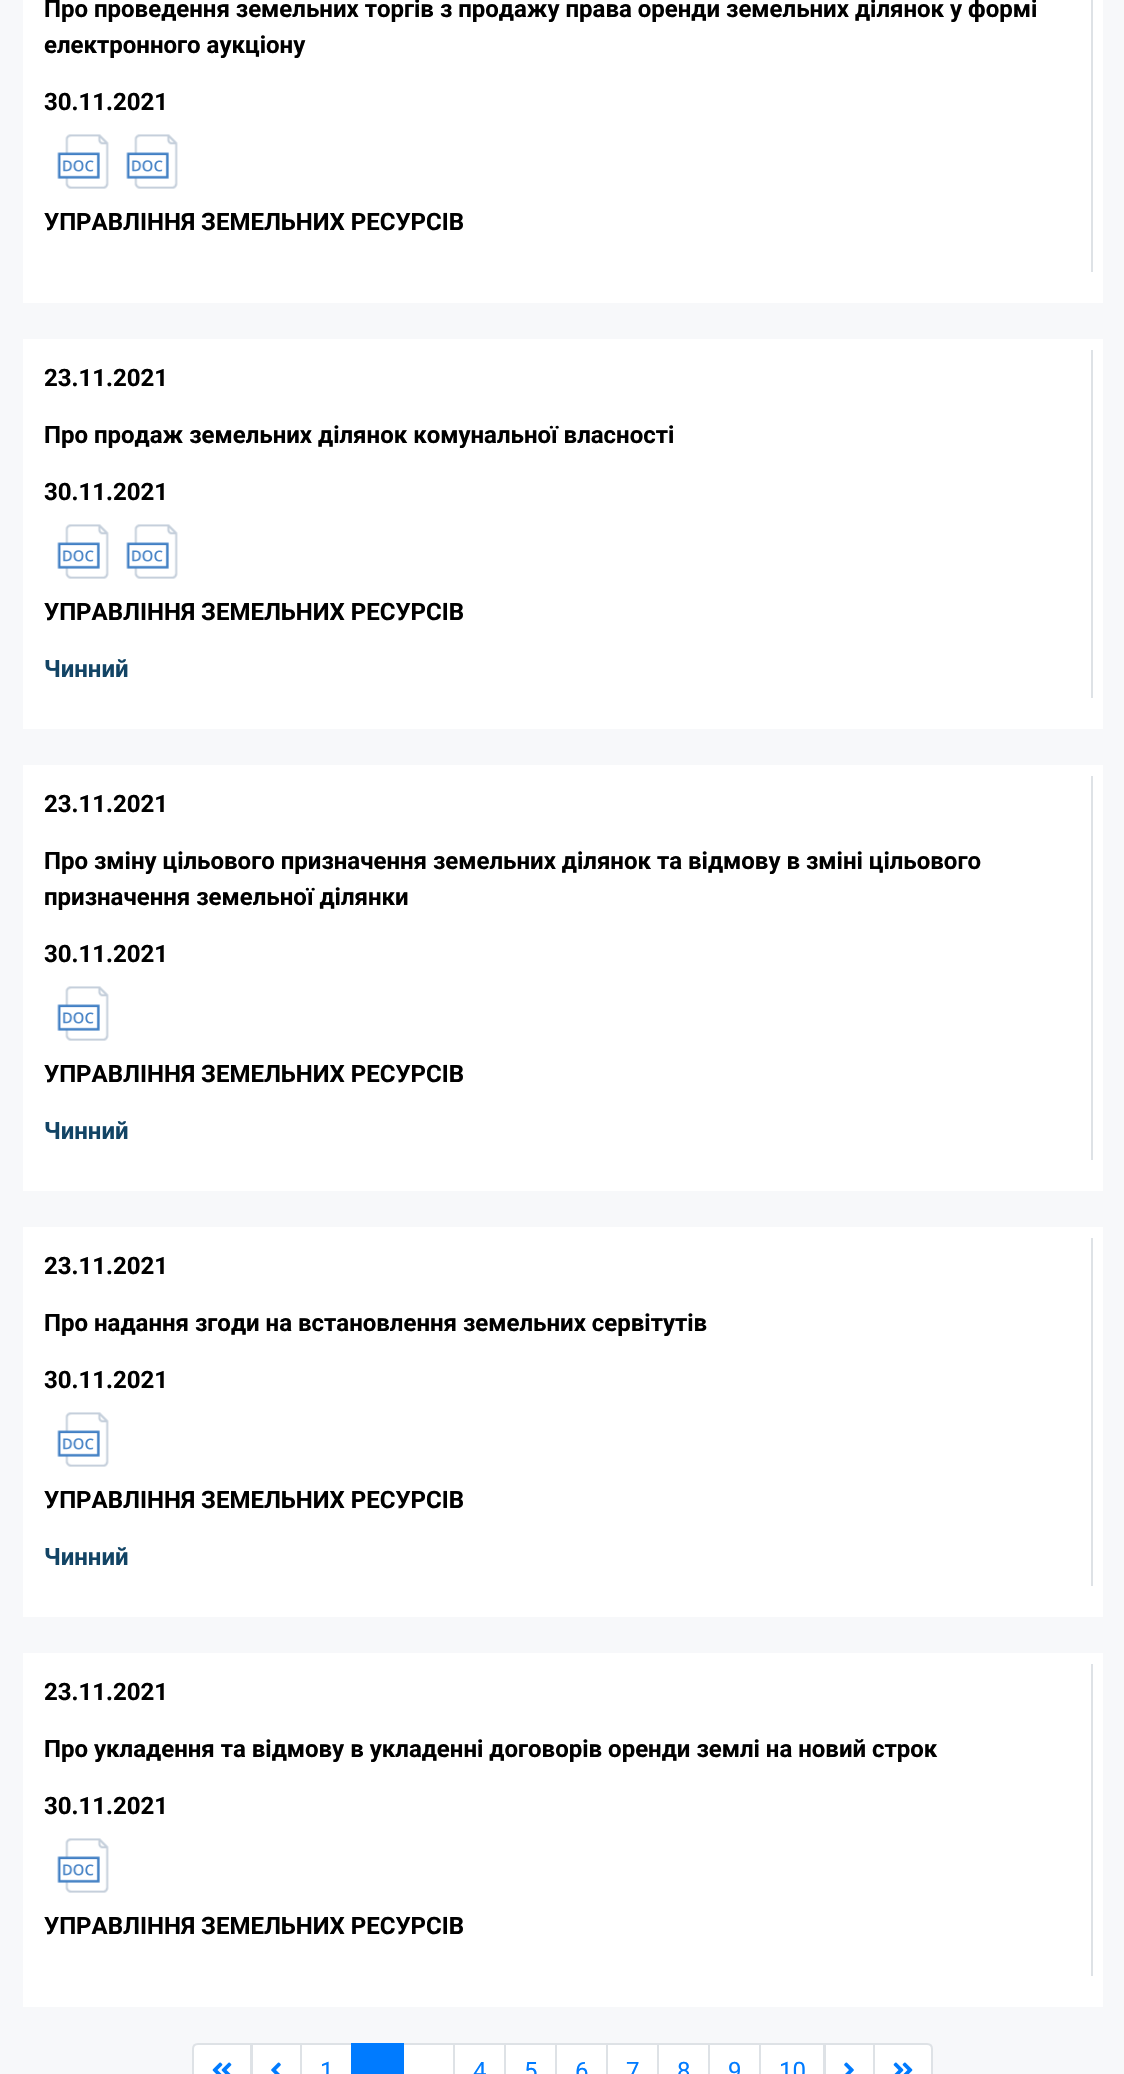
void draw(SkCanvas* c) {
SkPaint p;
p.setAntiAlias(true);
auto F=[&](const char* family, int weight, float size, bool italic = false){SkFontStyle style(weight, SkFontStyle::kNormal_Width,italic ? SkFontStyle::kItalic_Slant : SkFontStyle::kUpright_Slant);SkFont result(fontMgr->matchFamilyStyle(family, style), size);result.setSubpixel(true);return result;};
auto T=[&](const char* s, float x, float y, const SkFont& font){c->drawString(s, x, y, font, p);};
auto R=[&](float x, float y, float w, float h){c->drawRect(SkRect::MakeXYWH(x, y, w, h), p);};
auto I=[&](const char* path, float x, float y, float w, float h){auto image = SkImages::DeferredFromEncodedData(SkData::MakeFromFileName(path));c->drawImageRect(image, SkRect::MakeXYWH(x, y, w, h), SkSamplingOptions());};
auto P=[&](const char* data, bool evenOdd = false){SkPath result = *SkParsePath::FromSVGString(data);if (evenOdd) result.setFillType(SkPathFillType::kEvenOdd);return result;};
c->clear(0xfff7f8fa);
p.setColor(0xffffffff);
R(23,0,1080,303);
p.setColor(0xffdee2e6);
R(1091,0,2,272);
auto f1 = F("Roboto",700,24);
p.setColor(0xff000000);
T("Про проведення земельних торгів з продажу права оренди земельних ділянок у формі",44,17,f1);
T("електронного аукціону",44,53,f1);
T("30.11.2021",44,110,f1);
I("1.png",57,134,52,55);
I("1.png",126,134,52,55);
T("УПРАВЛІННЯ ЗЕМЕЛЬНИХ РЕСУРСІВ",44,230,f1);
p.setColor(0xffffffff);
R(23,339,1080,390);
p.setColor(0xffdee2e6);
R(1091,350,2,348);
p.setColor(0xff000000);
T("23.11.2021",44,386,f1);
T("Про продаж земельних ділянок комунальної власності",44,443,f1);
T("30.11.2021",44,500,f1);
I("1.png",57,524,52,55);
I("1.png",126,524,52,55);
T("УПРАВЛІННЯ ЗЕМЕЛЬНИХ РЕСУРСІВ",44,620,f1);
p.setColor(0xff124465);
T("Чинний",44,677,f1);
p.setColor(0xffffffff);
R(23,765,1080,426);
p.setColor(0xffdee2e6);
R(1091,776,2,384);
p.setColor(0xff000000);
T("23.11.2021",44,812,f1);
T("Про зміну цільового призначення земельних ділянок та відмову в зміні цільового",44,869,f1);
T("призначення земельної ділянки",44,905,f1);
T("30.11.2021",44,962,f1);
I("1.png",57,986,52,55);
T("УПРАВЛІННЯ ЗЕМЕЛЬНИХ РЕСУРСІВ",44,1082,f1);
p.setColor(0xff124465);
T("Чинний",44,1139,f1);
p.setColor(0xffffffff);
R(23,1227,1080,390);
p.setColor(0xffdee2e6);
R(1091,1238,2,348);
p.setColor(0xff000000);
T("23.11.2021",44,1274,f1);
T("Про надання згоди на встановлення земельних сервітутів",44,1331,f1);
T("30.11.2021",44,1388,f1);
I("1.png",57,1412,52,55);
T("УПРАВЛІННЯ ЗЕМЕЛЬНИХ РЕСУРСІВ",44,1508,f1);
p.setColor(0xff124465);
T("Чинний",44,1565,f1);
p.setColor(0xffffffff);
R(23,1653,1080,354);
p.setColor(0xffdee2e6);
R(1091,1664,2,312);
p.setColor(0xff000000);
T("23.11.2021",44,1700,f1);
T("Про укладення та відмову в укладенні договорів оренди землі на новий строк",44,1757,f1);
T("30.11.2021",44,1814,f1);
I("1.png",57,1838,52,55);
T("УПРАВЛІННЯ ЗЕМЕЛЬНИХ РЕСУРСІВ",44,1934,f1);
p.setColor(0xffffffff);
c->drawPath(P("M198 2044h53v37h-53c-3 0-5-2-5-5v-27c0-3 2-5 5-5z"),p);
p.setStroke(true);
p.setStrokeWidth(2);
p.setColor(0xffdee2e6);
c->drawPath(P("M198 2044h53v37h-53c-3 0-5-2-5-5v-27c0-3 2-5 5-5z"),p);
I("2.png",212,2062,20,12);
p.setStroke(false);
p.setColor(0xffffffff);
c->drawRect(SkRect::MakeXYWH(252,2044,49,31),p);
p.setStroke(true);
p.setColor(0xffdee2e6);
c->drawRect(SkRect::MakeXYWH(252,2044,49,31),p);
I("3.png",271,2062,10,12);
p.setStroke(false);
p.setColor(0xffffffff);
c->drawRect(SkRect::MakeXYWH(301,2044,51,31),p);
p.setStroke(true);
p.setColor(0xffdee2e6);
c->drawRect(SkRect::MakeXYWH(301,2044,51,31),p);
auto f2 = F("Roboto",400,24);
p.setStroke(false);
p.setColor(0xff007bff);
T("1",320,2079,f2);
p.setColor(0xffffffff);
c->drawRect(SkRect::MakeXYWH(403,2044,51,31),p);
p.setStroke(true);
p.setColor(0xffdee2e6);
c->drawRect(SkRect::MakeXYWH(403,2044,51,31),p);
p.setStroke(false);
p.setColor(0xff007bff);
R(351,2043,53,31);
p.setColor(0xffffffff);
c->drawRect(SkRect::MakeXYWH(454,2044,51,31),p);
p.setStroke(true);
p.setColor(0xffdee2e6);
c->drawRect(SkRect::MakeXYWH(454,2044,51,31),p);
p.setStroke(false);
p.setColor(0xff007bff);
T("4",473,2079,f2);
p.setColor(0xffffffff);
c->drawRect(SkRect::MakeXYWH(505,2044,51,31),p);
p.setStroke(true);
p.setColor(0xffdee2e6);
c->drawRect(SkRect::MakeXYWH(505,2044,51,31),p);
p.setStroke(false);
p.setColor(0xff007bff);
T("5",524,2079,f2);
p.setColor(0xffffffff);
c->drawRect(SkRect::MakeXYWH(556,2044,51,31),p);
p.setStroke(true);
p.setColor(0xffdee2e6);
c->drawRect(SkRect::MakeXYWH(556,2044,51,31),p);
p.setStroke(false);
p.setColor(0xff007bff);
T("6",575,2079,f2);
p.setColor(0xffffffff);
c->drawRect(SkRect::MakeXYWH(607,2044,51,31),p);
p.setStroke(true);
p.setColor(0xffdee2e6);
c->drawRect(SkRect::MakeXYWH(607,2044,51,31),p);
p.setStroke(false);
p.setColor(0xff007bff);
T("7",626,2079,f2);
p.setColor(0xffffffff);
c->drawRect(SkRect::MakeXYWH(658,2044,51,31),p);
p.setStroke(true);
p.setColor(0xffdee2e6);
c->drawRect(SkRect::MakeXYWH(658,2044,51,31),p);
p.setStroke(false);
p.setColor(0xff007bff);
T("8",677,2079,f2);
p.setColor(0xffffffff);
c->drawRect(SkRect::MakeXYWH(709,2044,51,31),p);
p.setStroke(true);
p.setColor(0xffdee2e6);
c->drawRect(SkRect::MakeXYWH(709,2044,51,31),p);
p.setStroke(false);
p.setColor(0xff007bff);
T("9",728,2079,f2);
p.setColor(0xffffffff);
c->drawRect(SkRect::MakeXYWH(760,2044,64,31),p);
p.setStroke(true);
p.setColor(0xffdee2e6);
c->drawRect(SkRect::MakeXYWH(760,2044,64,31),p);
p.setStroke(false);
p.setColor(0xff007bff);
T("10",779,2079,f2);
p.setColor(0xffffffff);
c->drawRect(SkRect::MakeXYWH(825,2044,49,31),p);
p.setStroke(true);
p.setColor(0xffdee2e6);
c->drawRect(SkRect::MakeXYWH(825,2044,49,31),p);
I("4.png",844,2062,10,12);
p.setStroke(false);
p.setColor(0xffffffff);
c->drawPath(P("M874 2044h53c3 0 5 2 5 5v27c0 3-2 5-5 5h-53z"),p);
p.setStroke(true);
p.setColor(0xffdee2e6);
c->drawPath(P("M874 2044h53c3 0 5 2 5 5v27c0 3-2 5-5 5h-53z"),p);
I("5.png",893,2062,20,12);
}
